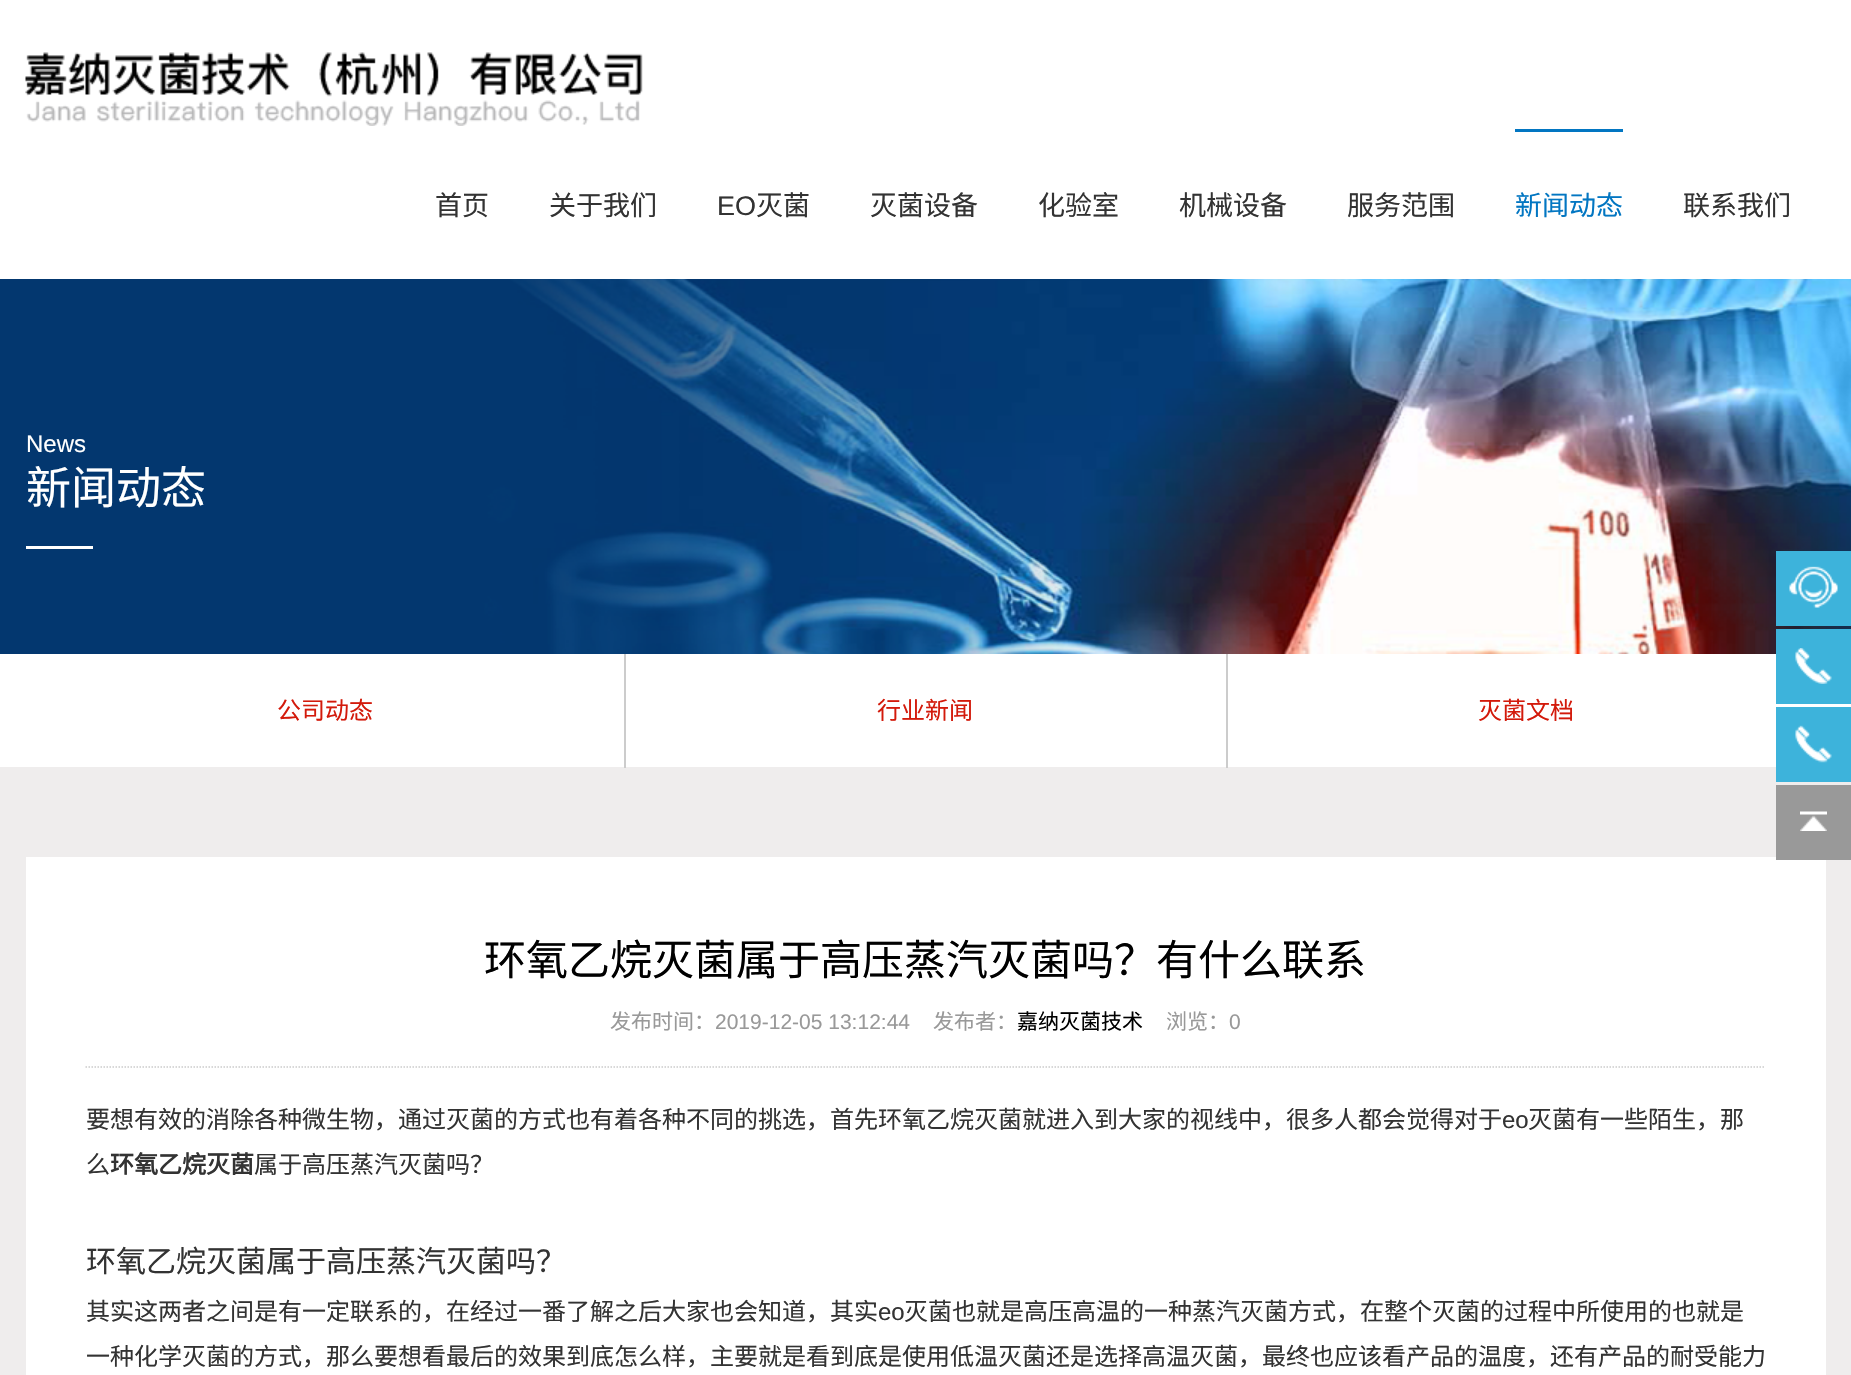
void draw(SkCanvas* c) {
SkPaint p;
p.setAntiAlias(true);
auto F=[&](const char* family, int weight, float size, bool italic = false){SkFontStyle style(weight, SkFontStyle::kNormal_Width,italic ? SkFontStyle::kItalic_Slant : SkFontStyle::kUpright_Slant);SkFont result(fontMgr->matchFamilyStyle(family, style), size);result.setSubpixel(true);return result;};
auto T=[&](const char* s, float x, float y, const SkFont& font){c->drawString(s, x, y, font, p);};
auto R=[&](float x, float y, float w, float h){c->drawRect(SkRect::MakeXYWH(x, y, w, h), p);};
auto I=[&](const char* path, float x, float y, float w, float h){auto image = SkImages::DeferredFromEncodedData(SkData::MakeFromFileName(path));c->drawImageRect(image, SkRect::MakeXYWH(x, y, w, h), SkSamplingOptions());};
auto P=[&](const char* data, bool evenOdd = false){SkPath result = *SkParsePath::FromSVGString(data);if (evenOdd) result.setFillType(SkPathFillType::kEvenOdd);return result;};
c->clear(0xffffffff);
I("1.png",25,52,618,74);
auto f1 = F("Noto Sans CJK SC",400,27);
p.setColor(0xff333333);
T("首页",435,215,f1);
T("关于我们",549,215,f1);
auto f2 = F("Liberation Sans",400,27);
T("EO",717,215,f2);
T("灭菌",756,215,f1);
T("灭菌设备",870,215,f1);
T("化验室",1038,215,f1);
T("机械设备",1179,215,f1);
T("服务范围",1347,215,f1);
p.setColor(0xff0276c2);
R(1515,129,108,3);
T("新闻动态",1515,215,f1);
p.setColor(0xff333333);
T("联系我们",1683,215,f1);
I("2.png",0,279,1851,375);
auto f3 = F("Liberation Sans",400,24);
p.setColor(0xffffffff);
T("News",26,452,f3);
auto f4 = F("Noto Sans CJK SC",400,45);
T("新闻动态",26,504,f4);
R(26,546,67,3);
p.setColor(0xffefeded);
R(0,767,1851,608);
p.setColor(0xffcccccc);
R(624,654,2,114);
auto f5 = F("Noto Sans CJK SC",400,24);
p.setColor(0xffd31a0b);
T("公司动态",277,719,f5);
p.setColor(0xffcccccc);
R(1226,654,2,114);
p.setColor(0xffd31a0b);
T("行业新闻",877,719,f5);
T("灭菌文档",1478,719,f5);
p.setColor(0xff3db3db);
R(1776,551,75,75);
I("3.png",1789,566,49,42);
R(1776,629,75,75);
I("4.png",1795,648,37,36);
R(1776,707,75,75);
I("5.png",1795,725,37,38);
p.setColor(0xffffffff);
R(26,857,1800,518);
p.setColor(0xff999999);
R(1776,785,75,75);
I("6.png",1800,811,27,20);
p.setStroke(true);
p.setStrokeWidth(1.5);
p.setColor(0xffcccccc);
p.setPathEffect(SkDashPathEffect::Make({{1.5f,1.5f}}, 0));
c->drawPath(P("M85.5 1067h1680"),p);
p.setPathEffect(nullptr);
auto f6 = F("Noto Sans CJK SC",400,42);
p.setStroke(false);
p.setColor(0xff000000);
T("环氧乙烷灭菌属于高压蒸汽灭菌吗？有什么联系",484,975,f6);
auto f7 = F("Noto Sans CJK SC",400,21);
p.setColor(0xff999999);
T("发布时间：",610,1029,f7);
auto f8 = F("Liberation Sans",400,21);
T("2019-12-05 13:12:44",715,1029,f8);
T("发布者：",933,1029,f7);
p.setColor(0xff000000);
T("嘉纳灭菌技术",1017,1029,f7);
p.setColor(0xff999999);
T("浏览：",1166,1029,f7);
T("0",1229,1029,f8);
p.setColor(0xff333333);
T("要想有效的消除各种微生物，通过灭菌的方式也有着各种不同的挑选，首先环氧乙烷灭菌就进入到大家的视线中，很多人都会觉得对于",86,1128,f5);
T("eo",1502,1128,f3);
T("灭菌有一些陌生，那",1528,1128,f5);
T("么",86,1173,f5);
auto f9 = F("Noto Sans CJK SC",700,24);
T("环氧乙烷灭菌",110,1173,f9);
T("属于高压蒸汽灭菌吗？",254,1173,f5);
auto f10 = F("Noto Sans CJK SC",400,30);
T("环氧乙烷灭菌属于高压蒸汽灭菌吗？",86,1272,f10);
T("其实这两者之间是有一定联系的，在经过一番了解之后大家也会知道，其实",86,1320,f5);
T("eo",878,1320,f3);
T("灭菌也就是高压高温的一种蒸汽灭菌方式，在整个灭菌的过程中所使用的也就是",904,1320,f5);
T("一种化学灭菌的方式，那么要想看最后的效果到底怎么样，主要就是看到底是使用低温灭菌还是选择高温灭菌，最终也应该看产品的温度，还有产品的耐受能力",86,1365,f5);
}
